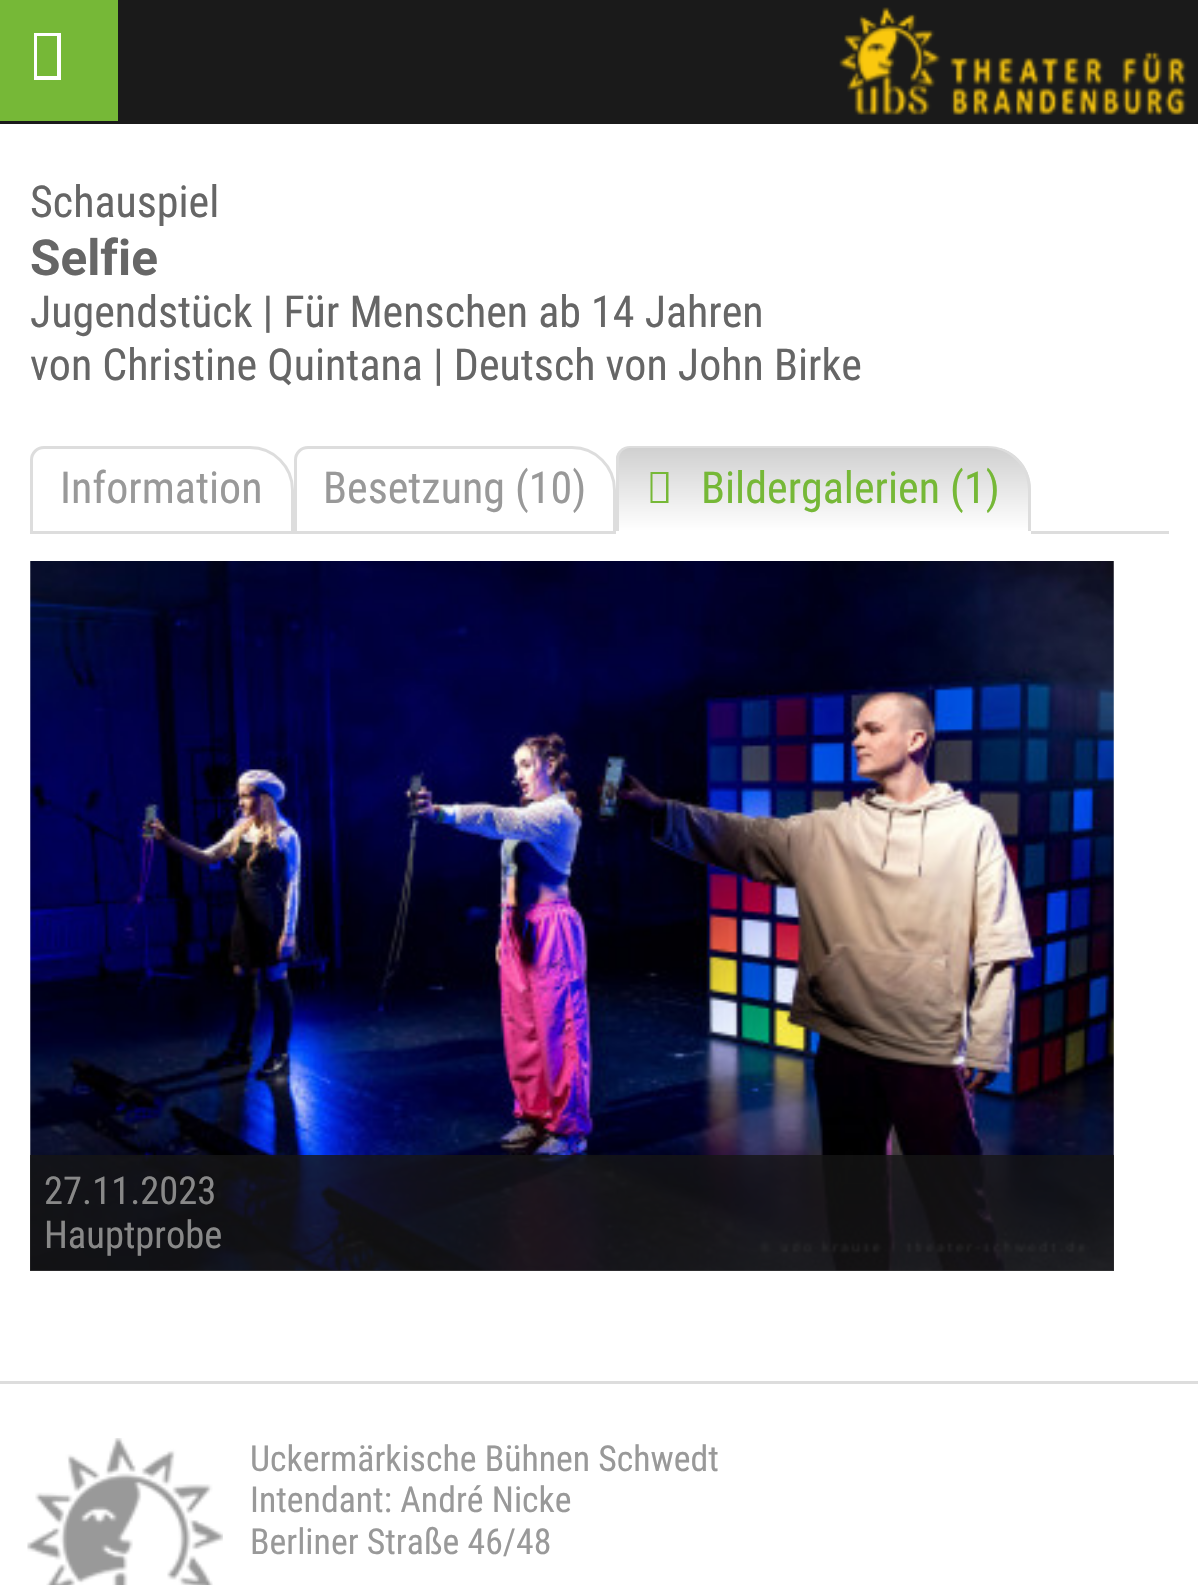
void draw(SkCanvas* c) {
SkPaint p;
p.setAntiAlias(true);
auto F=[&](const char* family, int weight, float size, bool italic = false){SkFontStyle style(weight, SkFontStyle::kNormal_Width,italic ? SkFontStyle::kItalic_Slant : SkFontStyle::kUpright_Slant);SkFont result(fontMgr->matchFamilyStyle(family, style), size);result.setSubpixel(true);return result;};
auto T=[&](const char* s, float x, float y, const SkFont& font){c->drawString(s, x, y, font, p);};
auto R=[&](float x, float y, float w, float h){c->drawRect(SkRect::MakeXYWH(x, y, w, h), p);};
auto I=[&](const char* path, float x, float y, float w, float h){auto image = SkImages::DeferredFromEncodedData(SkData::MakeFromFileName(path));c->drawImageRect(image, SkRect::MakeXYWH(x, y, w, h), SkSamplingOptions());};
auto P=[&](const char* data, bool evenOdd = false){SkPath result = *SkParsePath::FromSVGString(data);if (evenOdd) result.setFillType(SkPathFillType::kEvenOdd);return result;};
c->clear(0xffffffff);
p.setColor(0xff1a1a1a);
R(0,0,1198,124);
p.setColor(0xff76b837);
R(0,0,118,121);
p.setColor(0xffffffff);
c->drawPath(P("M34 80v-47h27v47zm3-4h20v-40h-20z"),p);
I("1.png",839,7,348,108);
auto f1 = F("Roboto Condensed",400,44);
p.setColor(0xff666666);
T("Schauspiel",30,217,f1);
auto f2 = F("Roboto",700,49.5);
T("Selfie",30,275,f2);
T("Jugendstück | Für Menschen ab 14 Jahren",30,327,f1);
T("von Christine Quintana | Deutsch von John Birke",30,380,f1);
p.setStroke(true);
p.setStrokeWidth(3);
p.setColor(0xffdddddd);
c->drawPath(P("M44 447.5h206c23.5 0 42.5 19 42.5 42.5v42.5h-261v-72.5c0-7 5.5-12.5 12.5-12.5z"),p);
p.setStroke(false);
p.setColor(0xff999999);
T("Information",60,503,f1);
p.setStroke(true);
p.setColor(0xffdddddd);
c->drawPath(P("M308 447.5h264c23.5 0 42.5 19 42.5 42.5v42.5h-319v-72.5c0-7 5.5-12.5 12.5-12.5z"),p);
p.setStroke(false);
p.setColor(0xff999999);
T("Besetzung (10)",323,503,f1);
c->save();
c->clipPath(P("M630 446h357c24.5 0 44 19.5 44 44v41h-415v-71c0-7.5 6.5-14 14-14z"),true);
{
const SkColor colors[] = {0xffd0d0d0,0xffffffff};
const float stops[] = {0,1};
const SkPoint ends[] = {{824,448}, {824,531}};
p.setShader(SkGradientShader::MakeLinear(ends, colors, stops, 2, SkTileMode::kClamp));
p.setAlpha(255);
}
R(616,448,415,83);
c->restore();
p.setShader(nullptr);
p.setColor(0xffdddddd);
c->drawPath(P("M630 446h357c25 0 44 19 44 44v41h-415v-72c0-7 6-13 14-13zm0 2h357c23 0 41 19 41 42v41h-409v-72c0-6 5-11 11-11z",true),p);
p.setColor(0xff76b837);
c->drawPath(P("M650.5 503v-31h18v31zm2-2h13.5v-27h-13.5z"),p);
T("Bildergalerien (1)",701,503,f1);
p.setColor(0xffdddddd);
R(1031,531,138,3);
I("2.png",30,561,1084,710);
p.setColor(0xcc141414);
R(30,1155,1084,116);
auto f3 = F("Roboto Condensed",400,38.5);
p.setColor(0xff888888);
T("27.11.2023",44,1204,f3);
T("Hauptprobe",44,1248,f3);
p.setColor(0xffdddddd);
R(0,1381,1198,3);
I("3.png",27,1438,196,147);
auto f4 = F("Roboto Condensed",400,35.75);
p.setColor(0xff999999);
T("Uckermärkische Bühnen Schwedt",250,1471,f4);
T("Intendant: André Nicke",250,1512,f4);
T("Berliner Straße 46/48",250,1554,f4);
}
